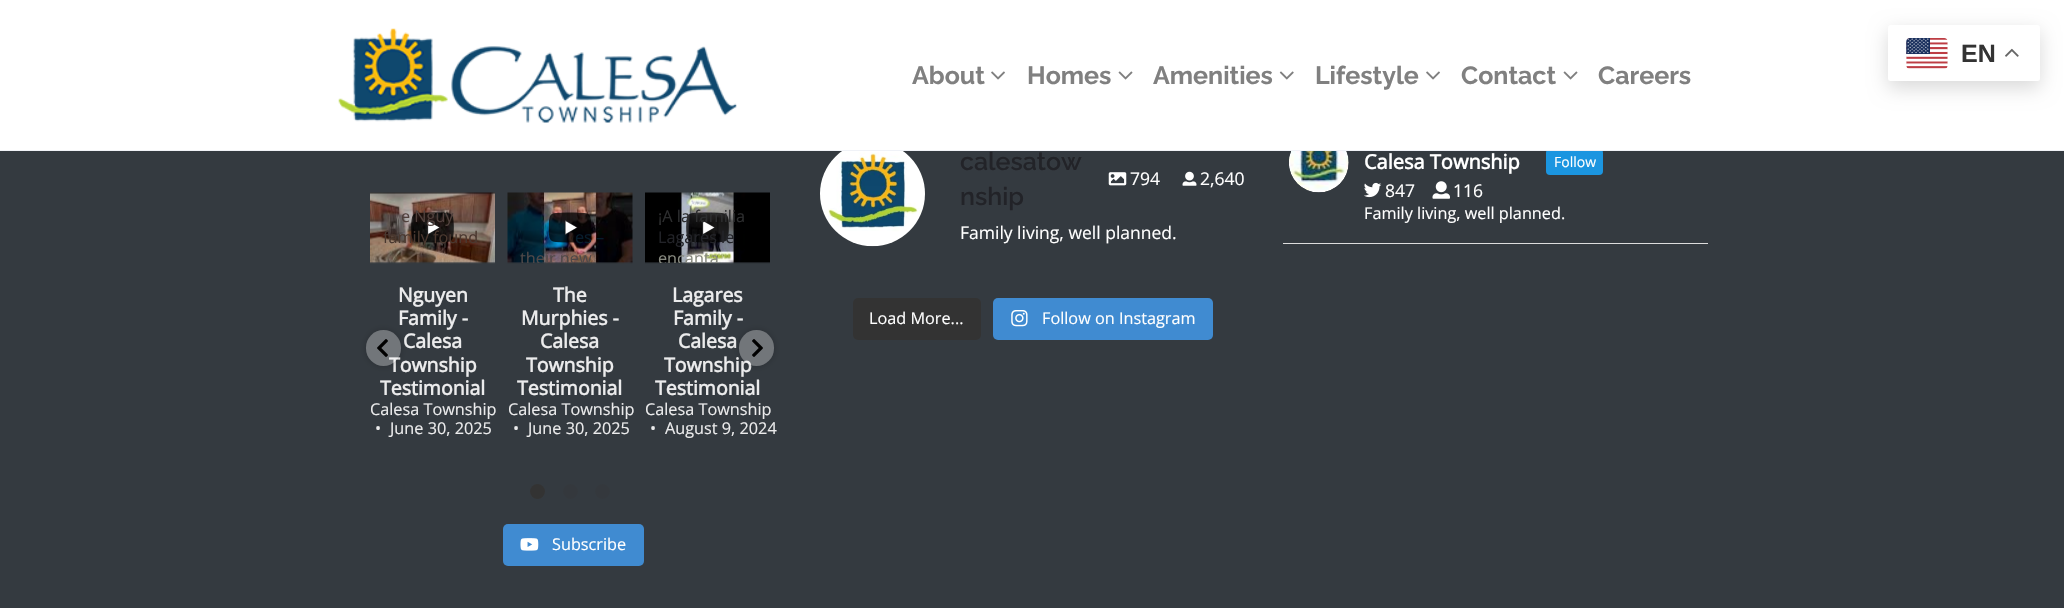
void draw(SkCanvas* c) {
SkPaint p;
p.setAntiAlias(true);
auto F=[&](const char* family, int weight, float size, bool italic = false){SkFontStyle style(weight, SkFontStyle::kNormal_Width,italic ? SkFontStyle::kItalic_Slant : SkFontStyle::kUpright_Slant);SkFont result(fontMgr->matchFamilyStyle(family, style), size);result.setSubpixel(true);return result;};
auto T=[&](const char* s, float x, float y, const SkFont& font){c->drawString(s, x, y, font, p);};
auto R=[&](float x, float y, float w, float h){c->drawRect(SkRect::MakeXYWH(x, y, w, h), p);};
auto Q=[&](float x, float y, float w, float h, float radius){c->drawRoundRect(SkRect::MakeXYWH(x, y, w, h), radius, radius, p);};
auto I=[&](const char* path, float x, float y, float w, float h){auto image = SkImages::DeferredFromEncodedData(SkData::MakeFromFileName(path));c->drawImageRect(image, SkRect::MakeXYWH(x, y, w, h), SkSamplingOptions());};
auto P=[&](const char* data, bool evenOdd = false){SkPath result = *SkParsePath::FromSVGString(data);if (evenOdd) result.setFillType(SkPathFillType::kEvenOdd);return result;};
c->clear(0xff343a40);
p.setColor(0xff1b95e0);
Q(1546,149,57,26,4);
p.setColor(0xffffffff);
R(0,0,2064,150);
p.setColor(0x26000000);
p.setMaskFilter(SkMaskFilter::MakeBlur(kNormal_SkBlurStyle, 9.5));
c->drawRoundRect(SkRect::MakeXYWH(1888,31,152,57),2.5,2.5,p);
p.setMaskFilter(nullptr);
p.setColor(0xffffffff);
Q(1888,25,152,56,2.5);
I("1.png",1906,38,42,31);
auto f1 = F("Liberation Sans",700,25);
p.setColor(0xff333333);
T("EN",1961,62,f1);
I("2.png",2005,48,14,9);
p.setColor(0xfff0f2f7);
R(0,150,2064,1);
I("3.png",338,28,399,95);
auto f2 = F("Raleway",700,25);
p.setColor(0xff808080);
T("About",912,84,f2);
I("4.png",991,71,14,9);
T("Homes",1027,84,f2);
I("5.png",1118,71,15,9);
T("Amenities",1153,84,f2);
I("6.png",1279,71,15,9);
T("Lifestyle",1315,84,f2);
I("4.png",1426,71,14,9);
T("Contact",1461,84,f2);
I("5.png",1563,71,15,9);
T("Careers",1598,84,f2);
I("7.png",820,151,105,96);
auto f3 = F("Raleway",600,25);
p.setColor(0xff222328);
T("calesatow",960,170,f3);
T("nship",960,205,f3);
I("8.png",1108,172,19,14);
auto f4 = F("Open Sans",400,17.5);
p.setColor(0xffffffff);
T("794",1130,185,f4);
I("9.png",1182,171,15,15);
T("2,640",1200,185,f4);
T("Family living, well planned.",960,239,f4);
p.setColor(0xff333333);
Q(853,298,128,42,5);
auto f5 = F("Open Sans",400,16.25);
p.setColor(0xffffffff);
T("Load More...",869,324,f5);
p.setColor(0xff408bd1);
Q(993,298,220,42,5);
I("10.png",1011,310,17,17);
p.setColor(0xffffffff);
T("Follow on Instagram",1042,324,f5);
p.setColor(0xffdddddd);
R(1283,243,425,1);
I("11.png",1289,151,60,42);
auto f6 = F("Open Sans",700,20);
p.setColor(0xffffffff);
T("Calesa Township",1364,169,f6);
auto f7 = F("Open Sans",400,14);
T("Follow",1554,167,f7);
I("12.png",1364,182,18,16);
T("847",1385,197,f4);
I("13.png",1432,181,18,18);
T("116",1453,197,f4);
T("Family living, well planned.",1364,219,f5);
I("14.png",370,192,125,72);
c->drawPath(P("M427.5 235v-15l12.5 7.5z"),p);
I("15.png",411,212,43,31);
p.setColor(0xff50403c);
T("e Nguy",401,222,f5);
p.setColor(0xff4a382f);
T("family found",383,243,f5);
auto f8 = F("Open Sans",700,19.5);
p.setColor(0xffebebec);
T("Nguyen",398,302,f8);
T("Family -",398,325,f8);
T("Calesa",403,348,f8);
T("Township",389,372,f8);
T("Testimonial",380,395,f8);
T("Calesa Township",370,415,f5);
T("•",375,434,f5);
T("June 30, 2025",390,434,f5);
I("16.png",507,192,126,72);
p.setColor(0xffffffff);
c->drawPath(P("M565 235v-15l12.5 7.5z"),p);
I("17.png",548,212,43,31);
p.setColor(0xff071d2c);
T("es –",575,243,f5);
c->save();
c->clipRect(SkRect::MakeXYWH(508,193,125,70));
p.setColor(0xff504848);
T("their new",520,264,f5);
c->restore();
p.setColor(0xffebebec);
T("The",553,302,f8);
T("Murphies -",521,325,f8);
T("Calesa",540,348,f8);
T("Township",526,372,f8);
T("Testimonial",517,395,f8);
T("Calesa Township",508,415,f5);
T("•",513,434,f5);
T("June 30, 2025",528,434,f5);
I("18.png",645,192,125,72);
p.setColor(0xffffffff);
c->drawPath(P("M702.5 235v-15l12.5 7.5z"),p);
I("19.png",686,212,43,31);
p.setColor(0xff2c2d2e);
T("¡A la familia",658,222,f5);
p.setColor(0xff222328);
T("Lagares le",658,243,f5);
c->save();
c->clipRect(SkRect::MakeXYWH(645,193,125,70));
p.setColor(0xff87897f);
T("encanta",658,264,f5);
c->restore();
p.setColor(0xffebebec);
T("Lagares",672,302,f8);
T("Family -",673,325,f8);
T("Calesa",678,348,f8);
T("Township",664,372,f8);
T("Testimonial",655,395,f8);
T("Calesa Township",645,415,f5);
T("•",650,434,f5);
T("August 9, 2024",665,434,f5);
c->save();
c->clipPath(P("M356 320h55v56h-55zm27.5 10c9.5 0 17.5 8 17.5 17.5v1c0 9.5-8 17.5-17.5 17.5c-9.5 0-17.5-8-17.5-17.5v-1c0-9.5 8-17.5 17.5-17.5z",true),true);
p.setColor(0x33000000);
p.setMaskFilter(SkMaskFilter::MakeBlur(kNormal_SkBlurStyle, 3));
c->drawRoundRect(SkRect::MakeXYWH(366,330,35,36),17.5,17.5,p);
p.setMaskFilter(nullptr);
c->restore();
p.setColor(0x4dffffff);
Q(366,330,35,36,17.5);
I("20.png",377,339,11,18);
c->save();
c->clipPath(P("M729 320h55v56h-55zm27.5 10c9.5 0 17.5 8 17.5 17.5v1c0 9.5-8 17.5-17.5 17.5c-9.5 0-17.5-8-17.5-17.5v-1c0-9.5 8-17.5 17.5-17.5z",true),true);
p.setColor(0x33000000);
p.setMaskFilter(SkMaskFilter::MakeBlur(kNormal_SkBlurStyle, 3));
c->drawRoundRect(SkRect::MakeXYWH(739,330,35,36),17.5,17.5,p);
p.setMaskFilter(nullptr);
c->restore();
p.setColor(0x4dffffff);
Q(739,330,35,36,17.5);
I("21.png",752,339,11,18);
p.setColor(0xff333333);
c->drawCircle(537.5,491.5,7.5,p);
p.setColor(0xff34383d);
c->drawCircle(570.5,491.5,7.5,p);
c->drawCircle(602.5,491.5,7.5,p);
p.setColor(0xff408bd1);
Q(503,524,141,42,5);
I("22.png",520,538,19,13);
p.setColor(0xffffffff);
T("Subscribe",552,550,f5);
}
